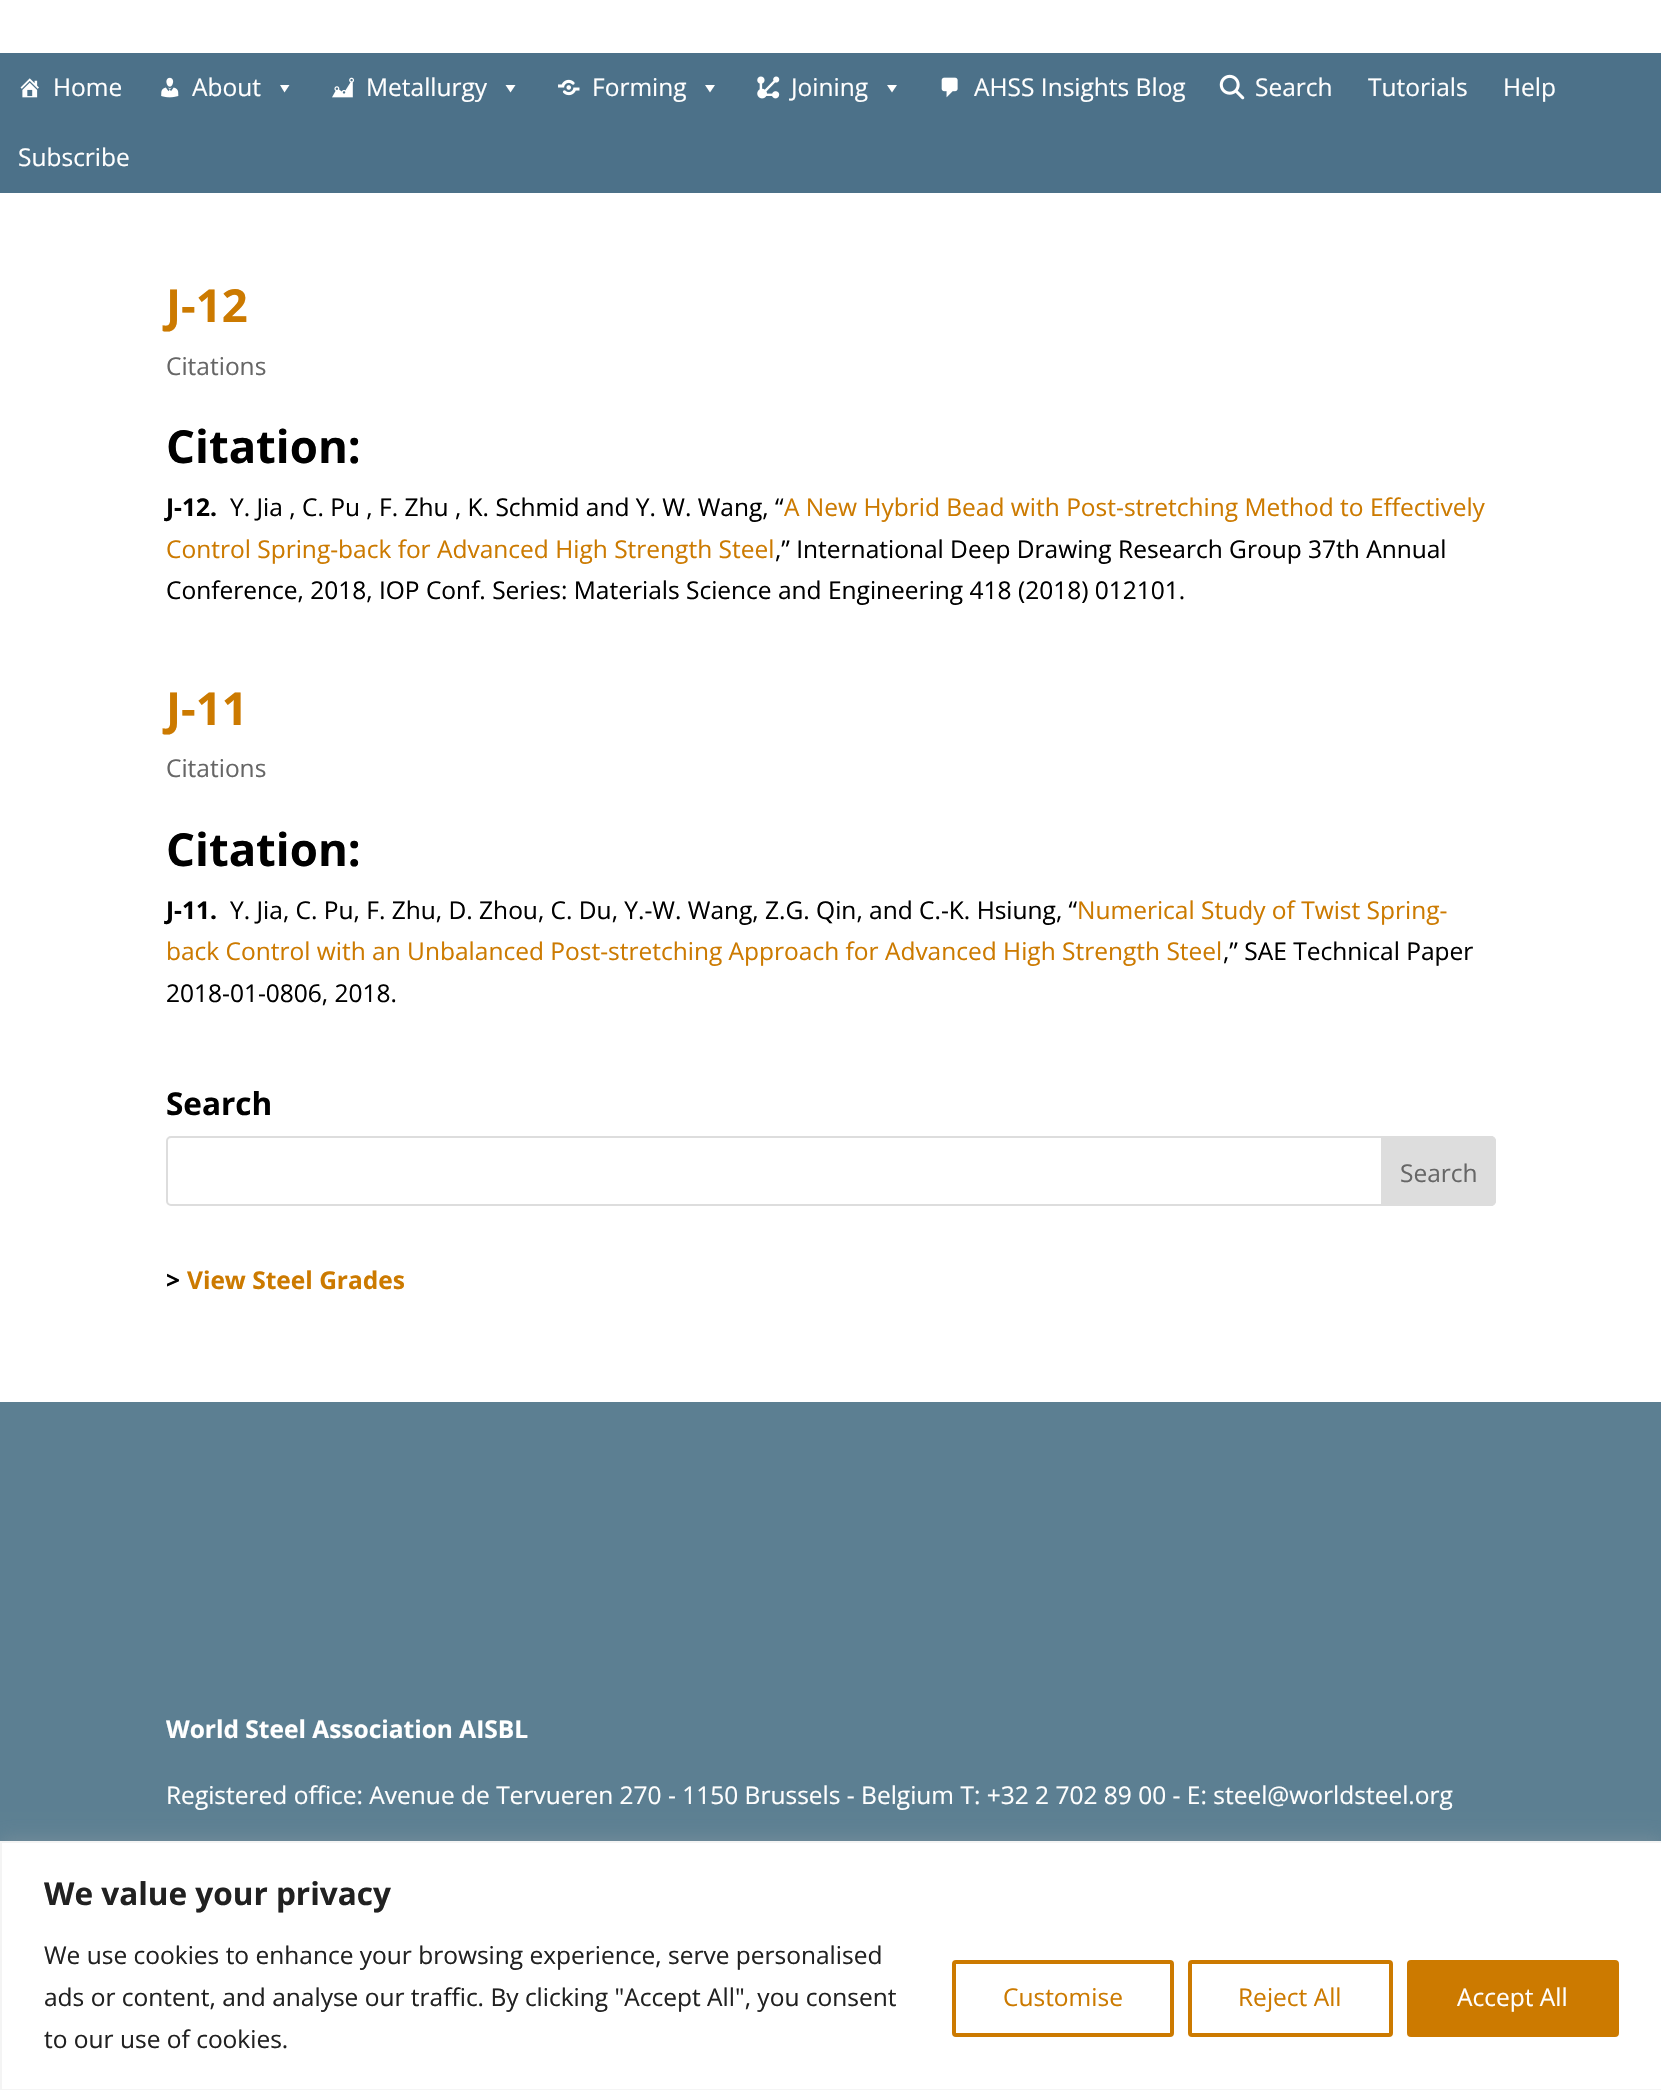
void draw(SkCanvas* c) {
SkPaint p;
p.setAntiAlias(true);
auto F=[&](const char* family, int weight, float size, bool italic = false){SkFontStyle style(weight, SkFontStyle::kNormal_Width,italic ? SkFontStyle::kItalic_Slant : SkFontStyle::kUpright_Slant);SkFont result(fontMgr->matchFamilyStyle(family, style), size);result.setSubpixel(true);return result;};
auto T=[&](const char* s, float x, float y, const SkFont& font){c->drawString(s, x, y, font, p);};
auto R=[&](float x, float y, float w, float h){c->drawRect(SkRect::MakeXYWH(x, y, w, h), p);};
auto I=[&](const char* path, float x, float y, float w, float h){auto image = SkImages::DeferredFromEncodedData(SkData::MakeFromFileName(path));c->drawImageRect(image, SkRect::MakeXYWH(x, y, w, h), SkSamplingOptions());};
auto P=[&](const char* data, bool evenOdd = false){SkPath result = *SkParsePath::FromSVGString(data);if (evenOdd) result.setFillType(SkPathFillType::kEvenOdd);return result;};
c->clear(0xffffffff);
p.setColor(0xff4c7189);
R(0,53,1661,140);
I("1.png",20,78,19,20);
auto f1 = F("Open Sans",400,24.5);
p.setColor(0xffffffff);
T("Home",53,96,f1);
I("2.png",161,77,18,21);
T("About",192,96,f1);
c->drawPath(P("M289.5 85l-5 7.5l-4.5-7.5z"),p);
I("3.png",332,77,22,21);
T("Metallurgy",366,96,f1);
c->drawPath(P("M515.5 85l-5 7.5l-5-7.5z"),p);
I("4.png",558,79,22,17);
T("Forming",592,96,f1);
c->drawPath(P("M715 85l-5 7.5l-5-7.5z"),p);
I("5.png",757,76,23,23);
T("Joining",791,96,f1);
c->drawPath(P("M897 85l-5 7.5l-5-7.5z"),p);
I("6.png",941,77,17,21);
T("AHSS Insights Blog",974,96,f1);
I("7.png",1219,74,26,26);
T("Search",1255,96,f1);
T("Tutorials",1368,96,f1);
T("Help",1503,96,f1);
T("Subscribe",18,166,f1);
auto f2 = F("Open Sans",700,45.5);
p.setColor(0xffcc7a00);
T("J-12",166,322,f2);
p.setColor(0xff666666);
T("Citations",166,375,f1);
p.setColor(0xff000000);
T("Citation:",166,463,f2);
auto f3 = F("Open Sans",700,24.5);
T("J-12.",166,516,f3);
T("Y. Jia , C. Pu , F. Zhu , K. Schmid and Y. W. Wang, “",230,516,f1);
p.setColor(0xffcc7a00);
T("A New Hybrid Bead with Post-stretching Method to Effectively",784,516,f1);
T("Control Spring-back for Advanced High Strength Steel",166,558,f1);
p.setColor(0xff000000);
T(",” International Deep Drawing Research Group 37th Annual",775,558,f1);
T("Conference, 2018, IOP Conf. Series: Materials Science and Engineering 418 (2018) 012101.",166,599,f1);
p.setColor(0xffcc7a00);
T("J-11",166,725,f2);
p.setColor(0xff666666);
T("Citations",166,777,f1);
p.setColor(0xff000000);
T("Citation:",166,866,f2);
T("J-11.",166,919,f3);
T("Y. Jia, C. Pu, F. Zhu, D. Zhou, C. Du, Y.-W. Wang, Z.G. Qin, and C.-K. Hsiung, “",230,919,f1);
p.setColor(0xffcc7a00);
T("Numerical Study of Twist Spring-",1077,919,f1);
T("back Control with an Unbalanced Post-stretching Approach for Advanced High Strength Steel",166,960,f1);
p.setColor(0xff000000);
T(",” SAE Technical Paper",1223,960,f1);
T("2018-01-0806, 2018.",166,1002,f1);
auto f4 = F("Open Sans",700,31.5);
T("Search",166,1115,f4);
p.setStroke(true);
p.setStrokeWidth(2);
p.setColor(0xffdddddd);
c->drawRoundRect(SkRect::MakeXYWH(167,1137,1328,68),4,4,p);
p.setStroke(false);
c->drawPath(P("M1382 1137h109c2 0 4 2 4 4v60c0 2-2 4-4 4h-109z"),p);
p.setStroke(true);
c->drawPath(P("M1382 1137h109c2 0 4 2 4 4v60c0 2-2 4-4 4h-109z"),p);
p.setStroke(false);
p.setColor(0xff666666);
T("Search",1400,1182,f1);
p.setColor(0xff000000);
T(">",166,1289,f3);
p.setColor(0xffcc7a00);
T("View Steel Grades",187,1289,f3);
p.setColor(0xff5c7f92);
R(0,1402,1661,439);
p.setColor(0xffffffff);
T("World Steel Association AISBL",166,1738,f3);
T("Registered office: Avenue de Tervueren 270 - 1150 Brussels - Belgium T: +32 2 702 89 00 - E: steel@worldsteel.org",166,1804,f1);
p.setColor(0x4dacabab);
p.setMaskFilter(SkMaskFilter::MakeBlur(kNormal_SkBlurStyle, 9));
c->drawRect(SkRect::MakeXYWH(0,1839,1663,251),p);
p.setMaskFilter(nullptr);
p.setColor(0xffffffff);
c->drawRect(SkRect::MakeXYWH(1,1842,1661,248),p);
p.setStroke(true);
p.setColor(0xfff4f4f4);
c->drawRect(SkRect::MakeXYWH(1,1842,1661,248),p);
p.setStroke(false);
p.setColor(0xff212121);
T("We value your privacy",44,1905,f4);
T("We use cookies to enhance your browsing experience, serve personalised",44,1964,f1);
T("ads or content, and analyse our traffic. By clicking \"Accept All\", you consent",44,2006,f1);
T("to our use of cookies.",44,2048,f1);
p.setStroke(true);
p.setStrokeWidth(4);
p.setColor(0xffcc7a00);
c->drawRoundRect(SkRect::MakeXYWH(954,1962,218,73),2,2,p);
p.setStroke(false);
T("Customise",1003,2006,f1);
p.setStroke(true);
c->drawRoundRect(SkRect::MakeXYWH(1190,1962,201,73),2,2,p);
p.setStroke(false);
T("Reject All",1238,2006,f1);
c->drawRoundRect(SkRect::MakeXYWH(1409,1962,208,73),2,2,p);
p.setStroke(true);
c->drawRoundRect(SkRect::MakeXYWH(1409,1962,208,73),2,2,p);
p.setStroke(false);
p.setColor(0xffffffff);
T("Accept All",1457,2006,f1);
}
